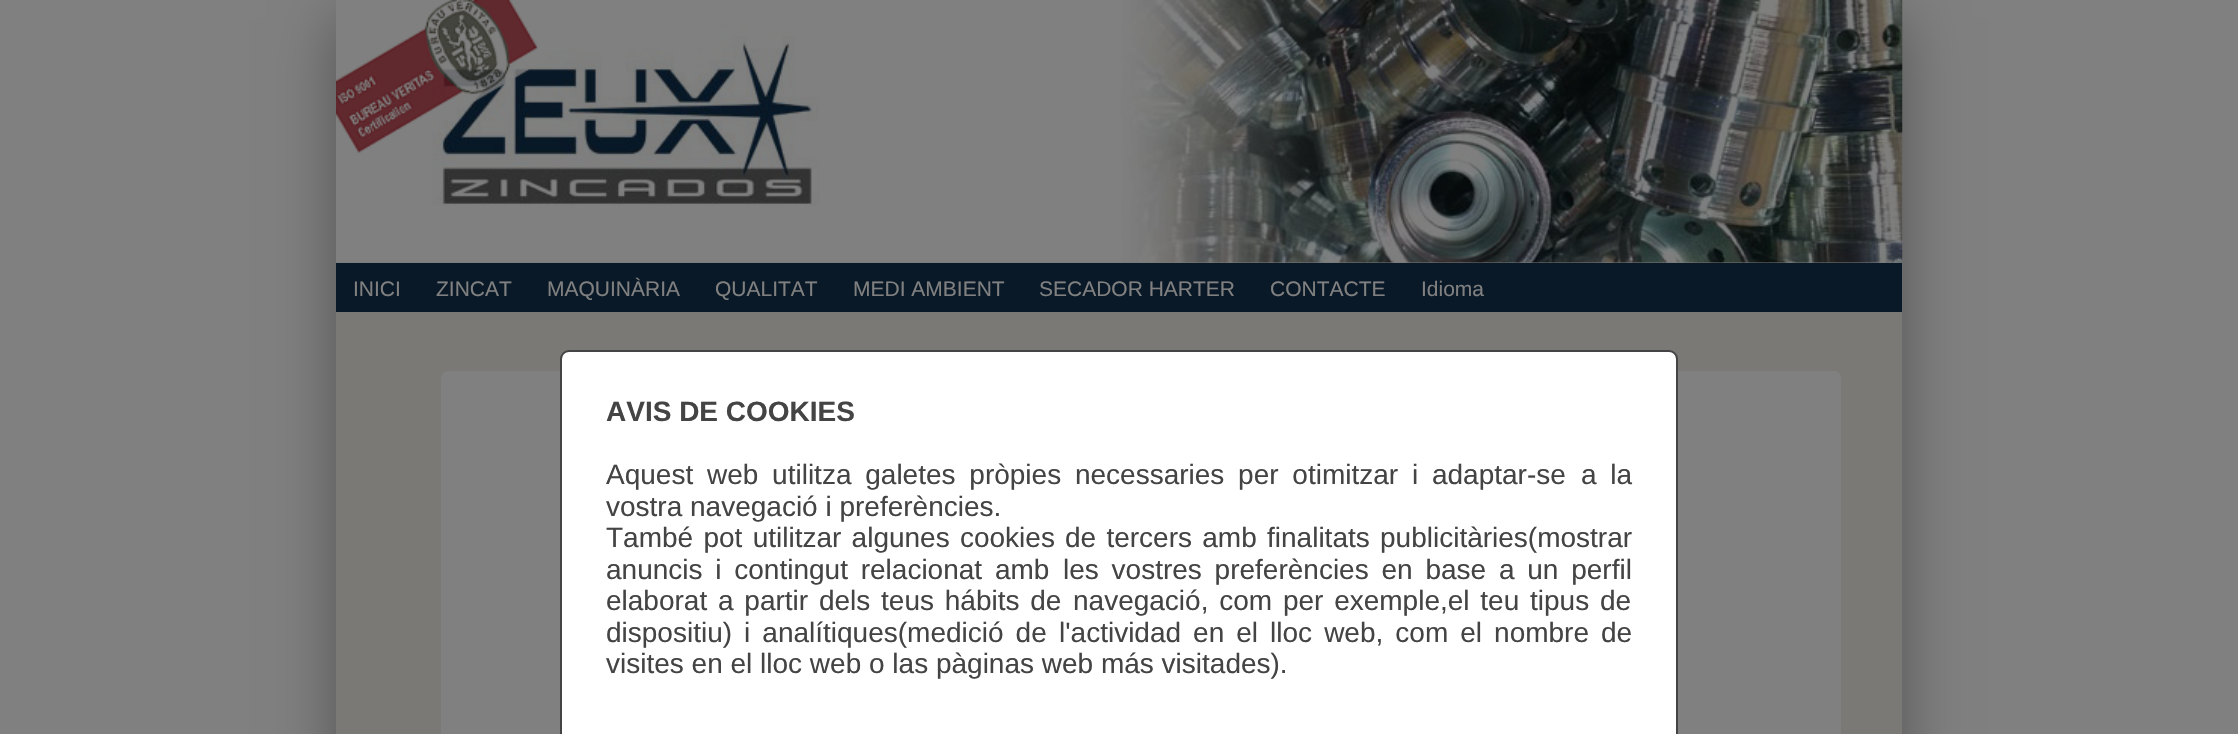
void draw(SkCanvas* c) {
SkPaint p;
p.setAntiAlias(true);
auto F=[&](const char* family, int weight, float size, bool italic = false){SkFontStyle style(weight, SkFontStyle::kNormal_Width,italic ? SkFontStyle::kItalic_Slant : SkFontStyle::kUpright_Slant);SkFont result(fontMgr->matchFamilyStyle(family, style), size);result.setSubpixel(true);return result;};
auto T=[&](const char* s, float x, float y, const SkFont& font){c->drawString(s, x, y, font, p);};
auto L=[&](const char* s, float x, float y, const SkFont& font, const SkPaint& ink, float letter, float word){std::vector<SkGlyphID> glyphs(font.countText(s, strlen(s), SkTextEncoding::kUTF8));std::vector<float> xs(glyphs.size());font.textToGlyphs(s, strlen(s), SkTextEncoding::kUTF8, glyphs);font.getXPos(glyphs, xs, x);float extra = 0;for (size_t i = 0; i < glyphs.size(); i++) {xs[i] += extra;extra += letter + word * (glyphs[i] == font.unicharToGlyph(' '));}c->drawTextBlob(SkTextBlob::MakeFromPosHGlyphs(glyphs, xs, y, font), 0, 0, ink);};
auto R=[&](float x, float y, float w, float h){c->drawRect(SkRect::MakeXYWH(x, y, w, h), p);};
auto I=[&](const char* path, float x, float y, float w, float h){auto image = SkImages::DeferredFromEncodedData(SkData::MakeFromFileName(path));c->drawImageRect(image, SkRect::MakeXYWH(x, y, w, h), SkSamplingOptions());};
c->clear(0xff808080);
p.setColor(0x59000000);
p.setMaskFilter(SkMaskFilter::MakeBlur(kNormal_SkBlurStyle, 29));
c->drawRect(SkRect::MakeXYWH(336,18,1566,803),p);
p.setMaskFilter(nullptr);
p.setColor(0xff7a7975);
R(336,262,1566,472);
I("1.png",336,0,1567,263);
p.setColor(0xff0a1927);
R(336,263,1566,49);
auto f1 = F("Liberation Sans",400,21);
p.setColor(0xff808080);
T("INICI",353,296,f1);
T("ZINCAT",436,296,f1);
T("MAQUINÀRIA",547,296,f1);
T("QUALITAT",715,296,f1);
T("MEDI AMBIENT",853,296,f1);
T("SECADOR HARTER",1039,296,f1);
T("CONTACTE",1270,296,f1);
T("Idioma",1421,296,f1);
c->drawRoundRect(SkRect::MakeXYWH(444.5,374.5,1393,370),3.5,3.5,p);
p.setStroke(true);
p.setStrokeWidth(7);
c->drawRoundRect(SkRect::MakeXYWH(444.5,374.5,1393,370),3.5,3.5,p);
p.setStroke(false);
p.setColor(0xffffffff);
c->drawRoundRect(SkRect::MakeXYWH(561,351,1116,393),8,8,p);
p.setStroke(true);
p.setStrokeWidth(2);
p.setColor(0xff444444);
c->drawRoundRect(SkRect::MakeXYWH(561,351,1116,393),8,8,p);
auto f2 = F("Liberation Sans",700,28);
p.setStroke(false);
T("AVIS DE COOKIES",606,421,f2);
auto f3 = F("Liberation Sans",400,28);
L("Aquest web utilitza galetes pròpies necessaries per otimitzar i adaptar-se",606,484,f3,p,0,6);
L("a la",1581,484,f3,p,0,6);
T("vostra navegació i preferències.",606,516,f3);
L("També pot utilitzar algunes cookies",606,547,f3,p,0,2.5);
L("de tercers amb finalitats publicitàries(mostrar",1065,547,f3,p,0,2.5);
L("anuncis i contingut relacionat amb",606,579,f3,p,0,5);
L("les vostres preferències en base a un perfil",1063,579,f3,p,0,5);
L("elaborat a partir dels teus hábits de",606,610,f3,p,0,3);
L("navegació, com per exemple,el teu tipus de",1073,610,f3,p,0,3);
L("dispositiu) i analítiques(medició de",606,642,f3,p,0,4.25);
L("l'actividad en el lloc web, com el nombre de",1059,642,f3,p,0,4.25);
T("visites en el lloc web o las pàginas web más visitades).",606,673,f3);
}
